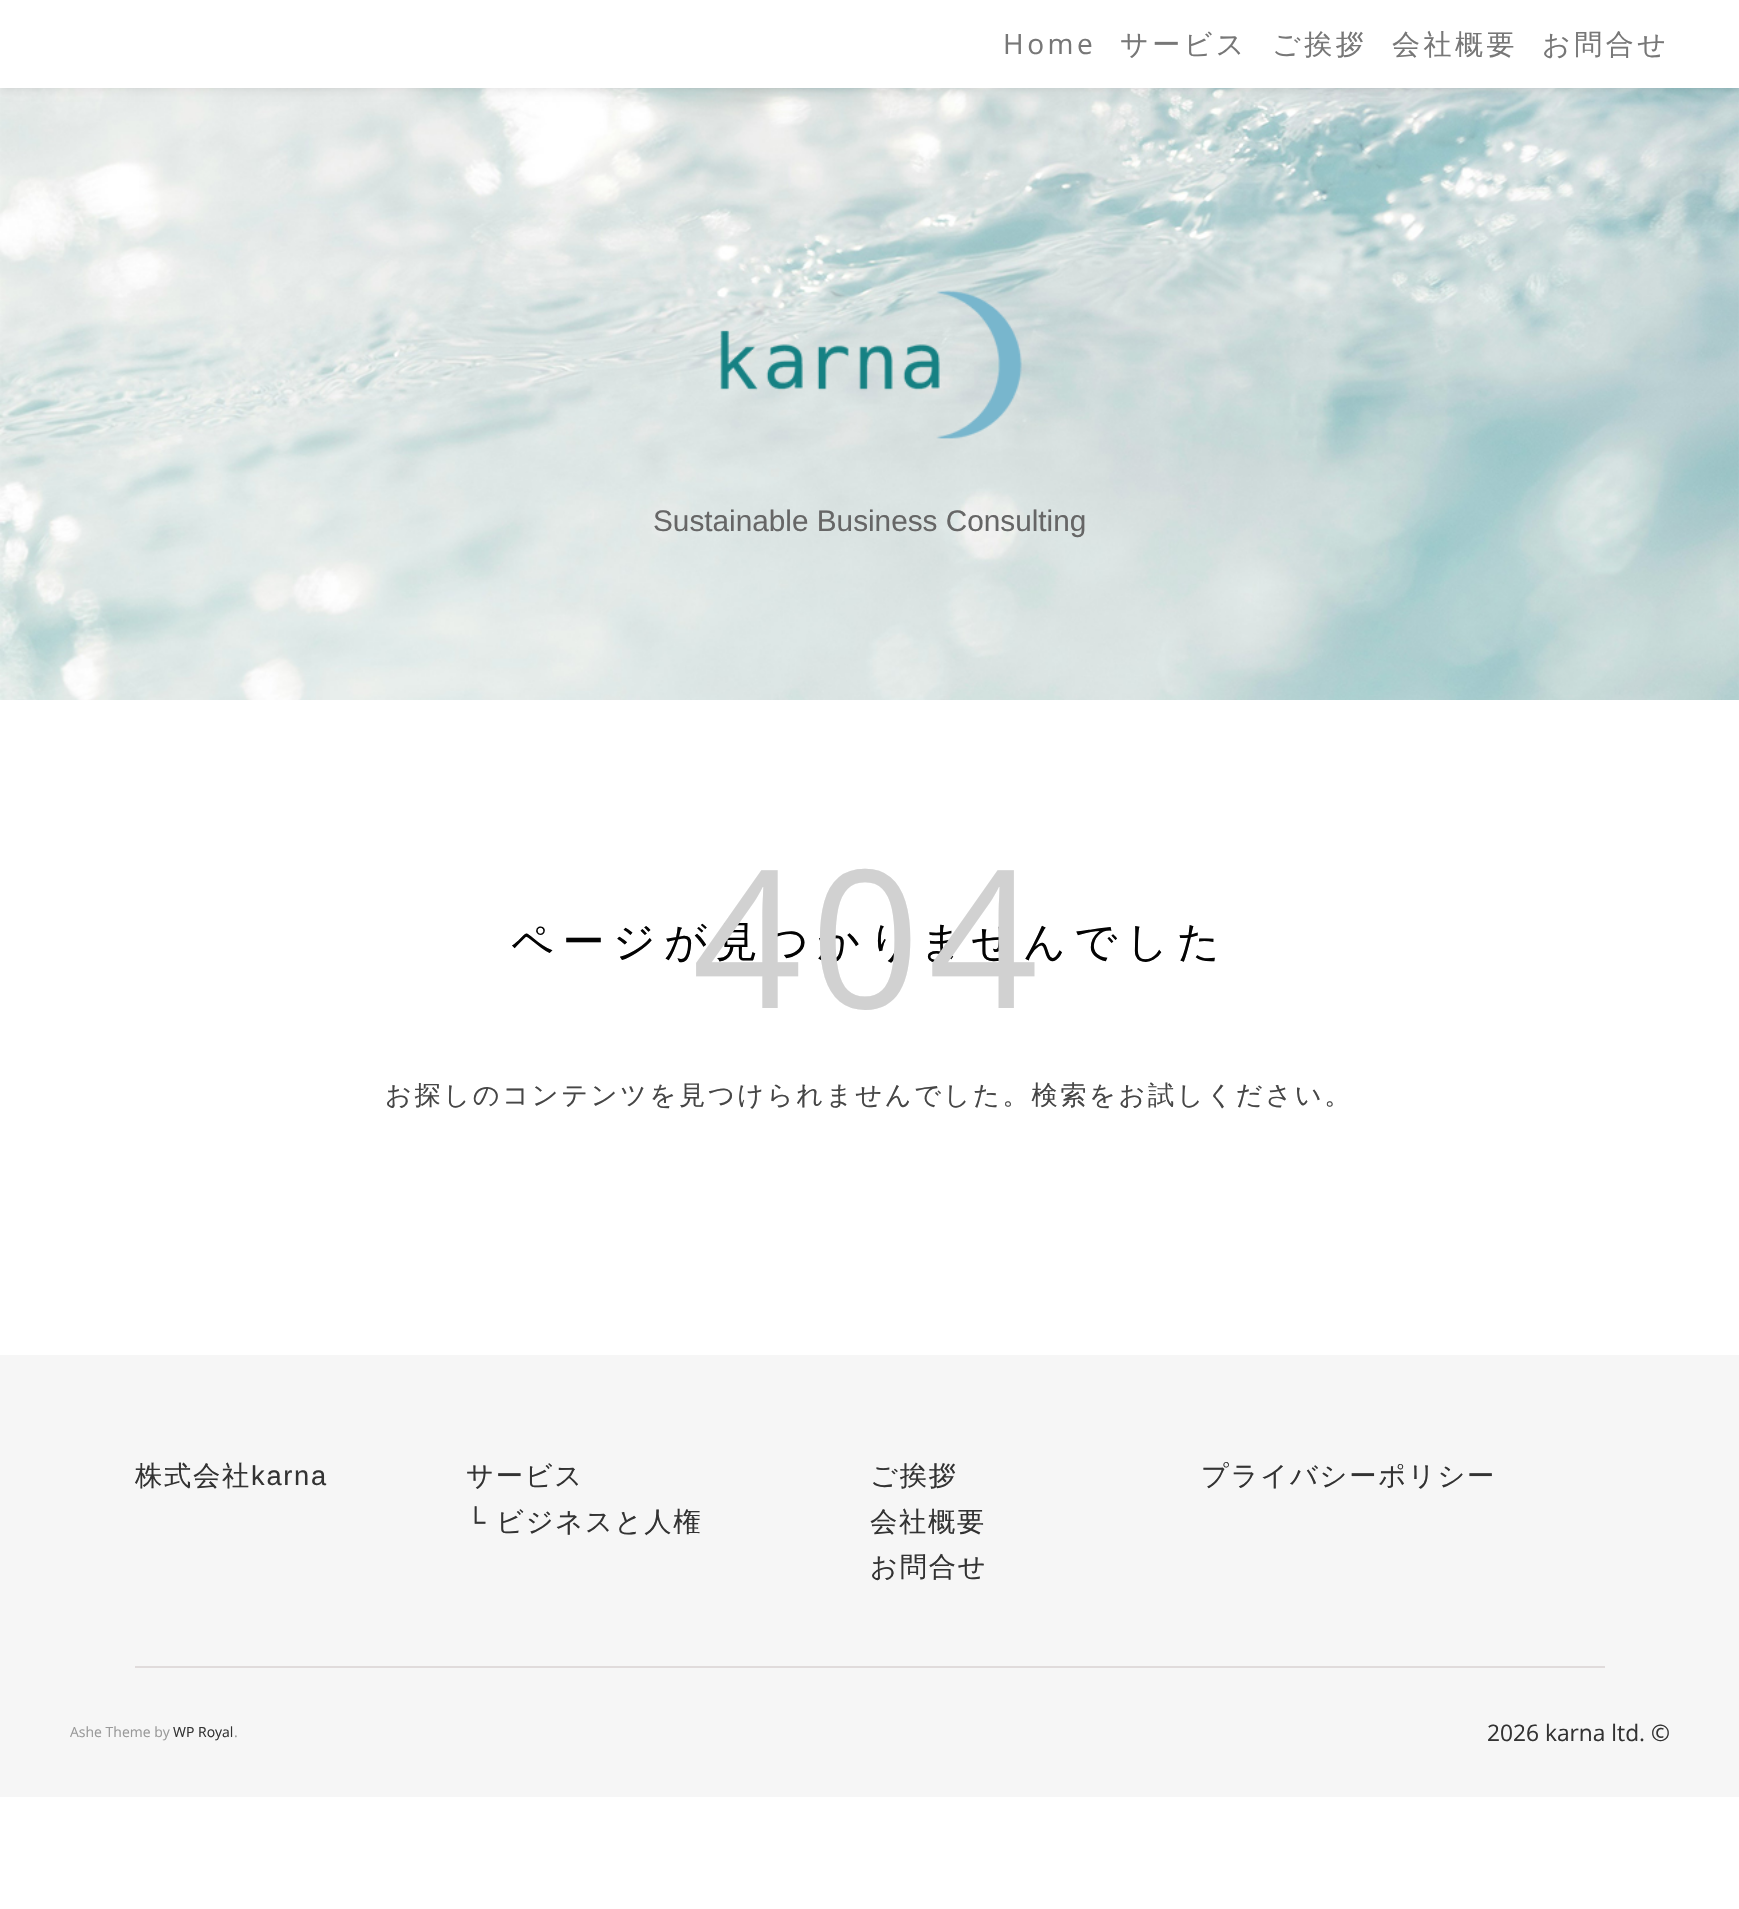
void draw(SkCanvas* c) {
SkPaint p;
p.setAntiAlias(true);
auto F=[&](const char* family, int weight, float size, bool italic = false){SkFontStyle style(weight, SkFontStyle::kNormal_Width,italic ? SkFontStyle::kItalic_Slant : SkFontStyle::kUpright_Slant);SkFont result(fontMgr->matchFamilyStyle(family, style), size);result.setSubpixel(true);return result;};
auto T=[&](const char* s, float x, float y, const SkFont& font){c->drawString(s, x, y, font, p);};
auto L=[&](const char* s, float x, float y, const SkFont& font, const SkPaint& ink, float letter, float word){std::vector<SkGlyphID> glyphs(font.countText(s, strlen(s), SkTextEncoding::kUTF8));std::vector<float> xs(glyphs.size());font.textToGlyphs(s, strlen(s), SkTextEncoding::kUTF8, glyphs);font.getXPos(glyphs, xs, x);float extra = 0;for (size_t i = 0; i < glyphs.size(); i++) {xs[i] += extra;extra += letter + word * (glyphs[i] == font.unicharToGlyph(' '));}c->drawTextBlob(SkTextBlob::MakeFromPosHGlyphs(glyphs, xs, y, font), 0, 0, ink);};
auto R=[&](float x, float y, float w, float h){c->drawRect(SkRect::MakeXYWH(x, y, w, h), p);};
auto I=[&](const char* path, float x, float y, float w, float h){auto image = SkImages::DeferredFromEncodedData(SkData::MakeFromFileName(path));c->drawImageRect(image, SkRect::MakeXYWH(x, y, w, h), SkSamplingOptions());};
c->clear(0xffffffff);
I("1.png",0,88,1739,612);
p.setColor(0x1a000000);
p.setMaskFilter(SkMaskFilter::MakeBlur(kNormal_SkBlurStyle, 4.5));
c->drawRect(SkRect::MakeXYWH(0,2,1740,87),p);
p.setMaskFilter(nullptr);
p.setColor(0xffffffff);
R(0,0,1739,88);
auto f1 = F("Open Sans",400,28);
p.setColor(0xff777777);
L("Home",1003,54,f1,p,3.5,0);
auto f2 = F("WenQuanYi Zen Hei",500,28);
L("サービス",1120,54,f2,p,3.5,0);
L("ご挨拶",1272,54,f2,p,3.5,0);
L("会社概要",1392,54,f2,p,3.5,0);
L("お問合せ",1542,54,f2,p,3.5,0);
I("2.png",720,290,302,149);
auto f3 = F("Liberation Sans",400,29.75);
p.setColor(0xff666666);
T("Sustainable Business Consulting",653,531,f3);
auto f4 = F("WenQuanYi Zen Hei",500,42);
p.setColor(0xff030303);
L("ページが見つかりませんでした",511,956,f4,p,8.4,0);
auto f5 = F("Open Sans",400,192);
p.setColor(0xffd1d1d1);
L("404",692,1008,f5,p,8.4,0);
auto f6 = F("WenQuanYi Zen Hei",500,26.25);
p.setColor(0xff464646);
L("お探しのコンテンツを見つけられませんでした。検索をお試しください。",385,1104,f6,p,2.6,0);
p.setColor(0xfff6f6f6);
R(0,1355,1739,442);
p.setColor(0xffe0dbdb);
R(135,1666,1470,2);
auto f7 = F("WenQuanYi Zen Hei",500,27.25);
p.setColor(0xff333333);
L("株式会社",135,1485,f7,p,1.75,0);
auto f8 = F("Liberation Sans",400,27.25);
L("karna",251,1485,f8,p,1.75,0);
L("サービス",466,1485,f7,p,1.75,0);
L("└",466,1531,f8,p,1.75,0);
L("ビジネスと人権",496,1531,f7,p,1.75,0);
L("ご挨拶",870,1485,f7,p,1.75,0);
L("会社概要",870,1531,f7,p,1.75,0);
L("お問合せ",870,1576,f7,p,1.75,0);
L("プライバシーポリシー",1201,1485,f7,p,1.75,0);
auto f9 = F("Open Sans",400,14);
p.setColor(0xff999999);
T("Ashe Theme by",70,1737,f9);
p.setColor(0xff333333);
T("WP Royal",173,1737,f9);
p.setColor(0xff999999);
T(".",234,1737,f9);
auto f10 = F("Open Sans",400,22.75);
p.setColor(0xff333333);
T("2026 karna ltd. ©",1487,1741,f10);
}
